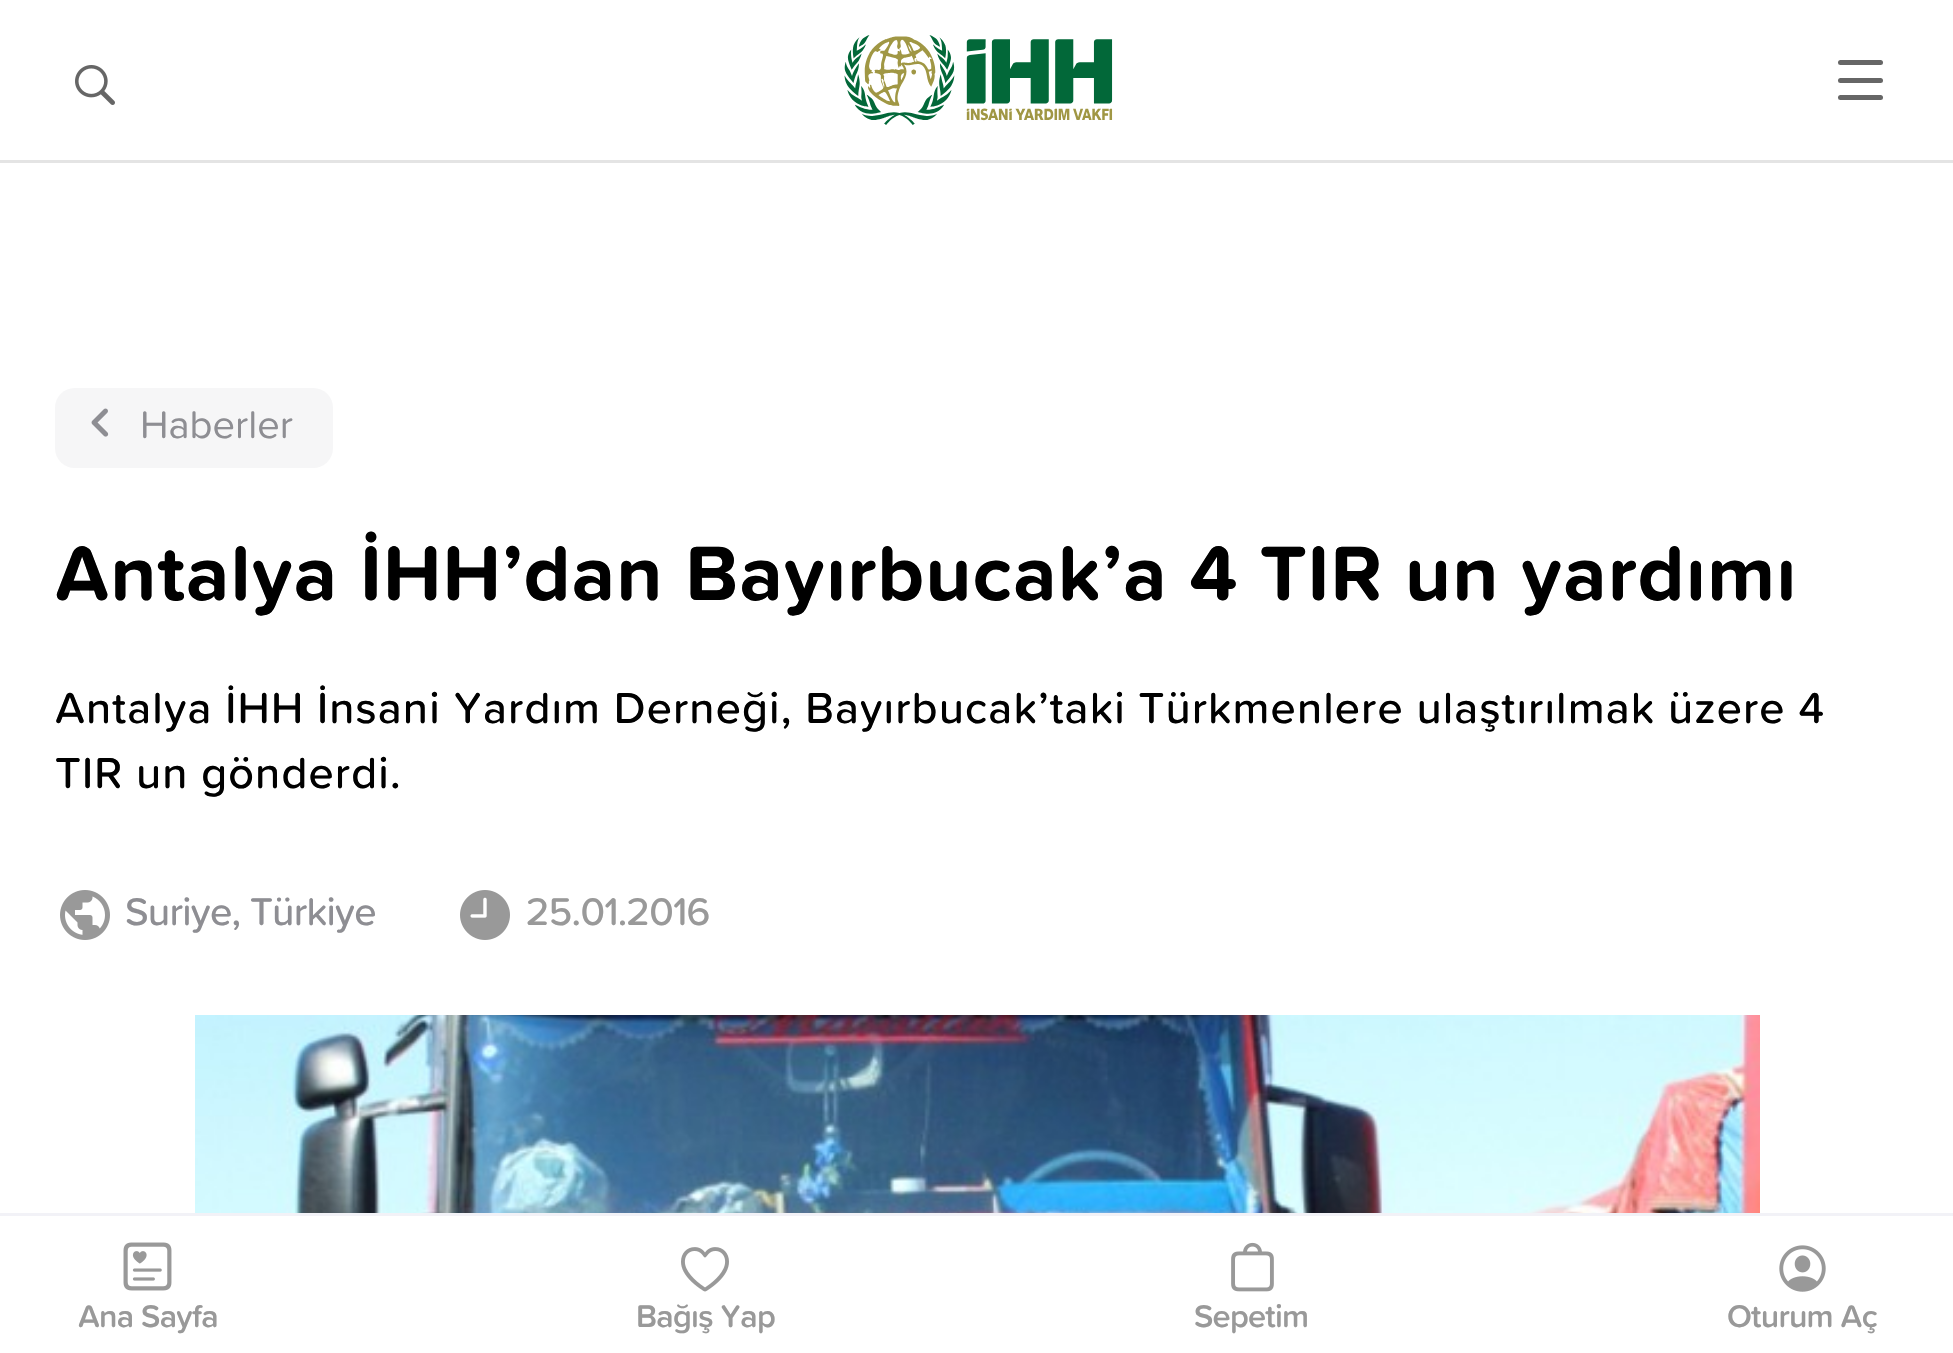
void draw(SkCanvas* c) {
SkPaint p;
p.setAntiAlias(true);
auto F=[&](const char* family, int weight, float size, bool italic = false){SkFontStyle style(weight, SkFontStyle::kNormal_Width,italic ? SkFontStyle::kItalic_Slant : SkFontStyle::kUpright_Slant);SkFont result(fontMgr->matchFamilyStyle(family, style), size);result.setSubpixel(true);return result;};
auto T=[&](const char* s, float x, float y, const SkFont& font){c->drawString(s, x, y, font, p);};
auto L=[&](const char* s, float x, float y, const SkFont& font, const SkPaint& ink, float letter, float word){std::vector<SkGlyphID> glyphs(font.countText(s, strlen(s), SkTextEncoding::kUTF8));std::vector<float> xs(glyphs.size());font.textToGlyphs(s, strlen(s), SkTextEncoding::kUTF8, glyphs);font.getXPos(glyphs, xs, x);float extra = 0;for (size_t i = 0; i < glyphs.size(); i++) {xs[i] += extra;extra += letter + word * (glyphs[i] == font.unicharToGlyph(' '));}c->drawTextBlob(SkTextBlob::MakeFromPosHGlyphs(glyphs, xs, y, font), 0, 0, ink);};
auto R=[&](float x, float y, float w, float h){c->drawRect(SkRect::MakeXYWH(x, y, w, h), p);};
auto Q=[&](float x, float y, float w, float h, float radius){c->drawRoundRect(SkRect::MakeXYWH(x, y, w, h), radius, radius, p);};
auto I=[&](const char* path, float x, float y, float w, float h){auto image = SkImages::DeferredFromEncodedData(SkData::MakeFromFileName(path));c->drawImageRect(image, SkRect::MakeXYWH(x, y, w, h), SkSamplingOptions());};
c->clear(0xffffffff);
p.setColor(0xffe4e4e4);
R(0,160,1953,3);
I("1.png",75,65,40,40);
I("2.png",844,35,269,90);
p.setColor(0xff666666);
Q(1838,60,45,5,2.5);
Q(1838,78,45,5,2.5);
Q(1838,95,45,5,2.5);
p.setColor(0xfff6f6f7);
Q(55,388,278,80,20);
I("3.png",91,408,18,29);
auto f1 = F("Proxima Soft",400,40);
p.setColor(0xff8e8e93);
T("Haberler",140,438,f1);
auto f2 = F("Proxima Soft",700,80);
p.setColor(0xff000000);
L("Antalya İHH’dan Bayırbucak’a 4 TIR un yardımı",55,600,f2,p,1.12,0);
auto f3 = F("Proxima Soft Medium",500,45);
L("Antalya İHH İnsani Yardım Derneği, Bayırbucak’taki Türkmenlere ulaştırılmak üzere 4",55,723,f3,p,1.12,0);
L("TIR un gönderdi.",55,788,f3,p,1.12,0);
I("4.png",60,890,50,50);
auto f4 = F("Proxima Soft Medium",500,40);
p.setColor(0xff8e8e93);
L("Suriye, Türkiye",125,925,f4,p,-.75,0);
I("5.png",460,890,50,50);
p.setColor(0xff999999);
L("25.01.2016",526,925,f4,p,-.75,0);
I("6.png",195,1015,1565,198);
p.setColor(0xfff2f2f7);
R(0,1213,1953,3);
I("7.png",123,1242,49,49);
auto f5 = F("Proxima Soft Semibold",600,32.5);
p.setColor(0xff999999);
L("Ana Sayfa",78,1327,f5,p,-.75,0);
I("8.png",681,1247,48,45);
L("Bağış Yap",636,1327,f5,p,-.75,0);
I("9.png",1231,1242,43,50);
L("Sepetim",1194,1327,f5,p,-.75,0);
I("10.png",1779,1245,47,47);
L("Oturum Aç",1727,1327,f5,p,-.75,0);
}
